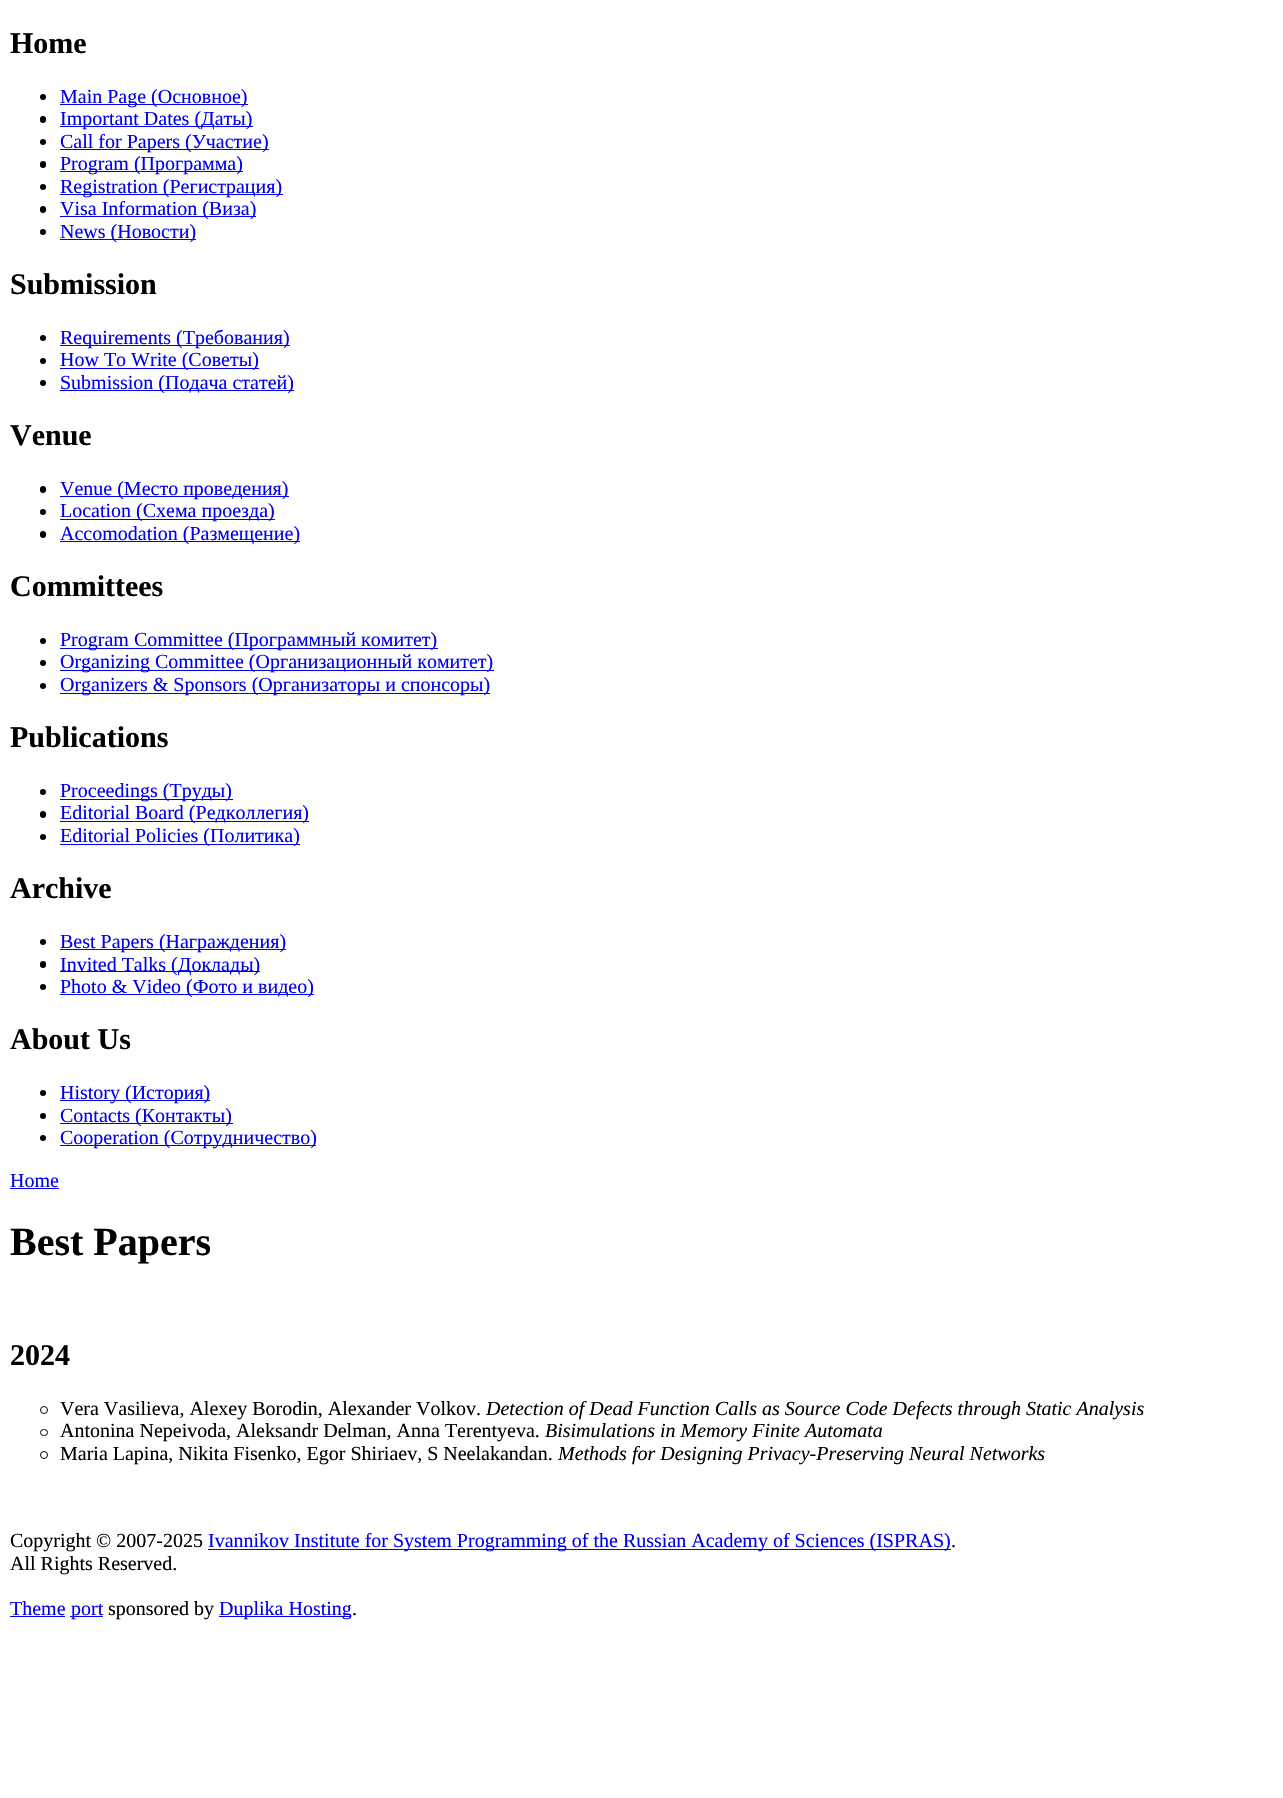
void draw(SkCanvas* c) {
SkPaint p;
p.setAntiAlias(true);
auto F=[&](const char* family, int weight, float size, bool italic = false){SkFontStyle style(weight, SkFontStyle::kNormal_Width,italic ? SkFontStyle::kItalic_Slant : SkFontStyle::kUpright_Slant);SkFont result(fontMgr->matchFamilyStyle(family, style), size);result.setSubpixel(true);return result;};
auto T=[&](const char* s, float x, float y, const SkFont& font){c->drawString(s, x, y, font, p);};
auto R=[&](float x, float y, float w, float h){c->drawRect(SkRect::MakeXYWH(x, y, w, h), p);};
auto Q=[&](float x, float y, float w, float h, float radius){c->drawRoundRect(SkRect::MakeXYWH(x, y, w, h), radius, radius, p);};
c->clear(0xffffffff);
auto f1 = F("Liberation Serif",700,30);
p.setColor(0xff000000);
T("Home",10,53,f1);
c->drawCircle(43,97,3,p);
p.setColor(0xff0000ee);
R(60,104,188,1);
auto f2 = F("Liberation Serif",400,20);
T("Main Page (Основное)",60,103,f2);
p.setColor(0xff000000);
Q(40,116,6,7,3);
p.setColor(0xff0000ee);
R(60,126,193,1);
T("Important Dates (Даты)",60,125,f2);
p.setColor(0xff000000);
c->drawCircle(43,142,3,p);
p.setColor(0xff0000ee);
R(60,149,209,1);
T("Call for Papers (Участие)",60,148,f2);
p.setColor(0xff000000);
Q(40,161,6,7,3);
p.setColor(0xff0000ee);
R(60,171,183,1);
T("Program (Программа)",60,170,f2);
p.setColor(0xff000000);
c->drawCircle(43,187,3,p);
p.setColor(0xff0000ee);
R(60,194,223,1);
T("Registration (Регистрация)",60,193,f2);
p.setColor(0xff000000);
Q(40,206,6,7,3);
p.setColor(0xff0000ee);
R(60,216,196,1);
T("Visa Information (Виза)",60,215,f2);
p.setColor(0xff000000);
c->drawCircle(43,232,3,p);
p.setColor(0xff0000ee);
R(60,239,136,1);
T("News (Новости)",60,238,f2);
p.setColor(0xff000000);
T("Submission",10,294,f1);
c->drawCircle(43,338,3,p);
p.setColor(0xff0000ee);
R(60,345,230,1);
T("Requirements (Требования)",60,344,f2);
p.setColor(0xff000000);
c->drawCircle(43,361,3,p);
p.setColor(0xff0000ee);
R(60,368,199,1);
T("How To Write (Советы)",60,366,f2);
p.setColor(0xff000000);
c->drawCircle(43,383,3,p);
p.setColor(0xff0000ee);
R(60,390,234,1);
T("Submission (Подача статей)",60,389,f2);
p.setColor(0xff000000);
T("Venue",10,445,f1);
Q(40,486,6,7,3);
p.setColor(0xff0000ee);
R(60,496,229,1);
T("Venue (Место проведения)",60,495,f2);
p.setColor(0xff000000);
c->drawCircle(43,512,3,p);
p.setColor(0xff0000ee);
R(60,519,215,1);
T("Location (Схема проезда)",60,517,f2);
p.setColor(0xff000000);
Q(40,531,6,7,3);
p.setColor(0xff0000ee);
R(60,541,240,1);
T("Accomodation (Размещение)",60,540,f2);
p.setColor(0xff000000);
T("Committees",10,596,f1);
c->drawCircle(43,641,3,p);
p.setColor(0xff0000ee);
R(60,648,378,1);
T("Program Committee (Программный комитет)",60,646,f2);
p.setColor(0xff000000);
c->drawCircle(43,663,3,p);
p.setColor(0xff0000ee);
R(60,670,434,1);
T("Organizing Committee (Организационный комитет)",60,668,f2);
p.setColor(0xff000000);
c->drawCircle(43,686,3,p);
p.setColor(0xff0000ee);
R(60,693,430,1);
T("Organizers & Sponsors (Организаторы и спонсоры)",60,691,f2);
p.setColor(0xff000000);
T("Publications",10,747,f1);
c->drawCircle(43,792,3,p);
p.setColor(0xff0000ee);
R(60,799,173,1);
T("Proceedings (Труды)",60,797,f2);
p.setColor(0xff000000);
Q(40,811,6,7,3);
p.setColor(0xff0000ee);
R(60,821,249,1);
T("Editorial Board (Редколлегия)",60,819,f2);
p.setColor(0xff000000);
c->drawCircle(43,837,3,p);
p.setColor(0xff0000ee);
R(60,844,240,1);
T("Editorial Policies (Политика)",60,842,f2);
p.setColor(0xff000000);
T("Archive",10,898,f1);
c->drawCircle(43,942,3,p);
p.setColor(0xff0000ee);
R(60,949,226,1);
T("Best Papers (Награждения)",60,948,f2);
p.setColor(0xff000000);
Q(40,961,6,7,3);
p.setColor(0xff0000ee);
R(60,971,200,1);
T("Invited Talks (Доклады)",60,971,f2);
p.setColor(0xff000000);
c->drawCircle(43,987,3,p);
p.setColor(0xff0000ee);
R(60,994,254,1);
T("Photo & Video (Фото и видео)",60,993,f2);
p.setColor(0xff000000);
T("About Us",10,1049,f1);
c->drawCircle(43,1093,3,p);
p.setColor(0xff0000ee);
R(60,1100,150,1);
T("History (История)",60,1099,f2);
p.setColor(0xff000000);
c->drawCircle(43,1116,3,p);
p.setColor(0xff0000ee);
R(60,1123,173,1);
T("Contacts (Контакты)",60,1122,f2);
p.setColor(0xff000000);
c->drawCircle(43,1138,3,p);
p.setColor(0xff0000ee);
R(60,1145,256,1);
T("Cooperation (Сотрудничество)",60,1144,f2);
T("Home",10,1187,f2);
R(10,1188,49,1);
auto f3 = F("Liberation Serif",700,40);
p.setColor(0xff000000);
T("Best Papers",10,1255,f3);
T("2024",10,1365,f1);
p.setStroke(true);
p.setStrokeWidth(1);
c->drawCircle(44,1410,3.5,p);
p.setStroke(false);
T("Vera Vasilieva, Alexey Borodin, Alexander Volkov.",60,1415,f2);
auto f4 = F("Liberation Serif",400,20,true);
T("Detection of Dead Function Calls as Source Code Defects through Static Analysis",486,1415,f4);
p.setStroke(true);
c->drawRoundRect(SkRect::MakeXYWH(40.5,1429.5,7,6),3,3,p);
p.setStroke(false);
T("Antonina Nepeivoda, Aleksandr Delman, Anna Terentyeva.",60,1437,f2);
T("Bisimulations in Memory Finite Automata",545,1437,f4);
p.setStroke(true);
c->drawCircle(44,1455,3.5,p);
p.setStroke(false);
T("Maria Lapina, Nikita Fisenko, Egor Shiriaev, S Neelakandan.",60,1460,f2);
T("Methods for Designing Privacy-Preserving Neural Networks",558,1460,f4);
T("Copyright © 2007-2025",10,1547,f2);
p.setColor(0xff0000ee);
R(208,1549,743,1);
T("Ivannikov Institute for System Programming of the Russian Academy of Sciences (ISPRAS)",208,1547,f2);
p.setColor(0xff000000);
T(".",951,1547,f2);
T("All Rights Reserved.",10,1570,f2);
p.setColor(0xff0000ee);
T("Theme",10,1615,f2);
R(10,1616,55,1);
R(70,1616,33,1);
T("port",71,1615,f2);
p.setColor(0xff000000);
T("sponsored by",108,1615,f2);
p.setColor(0xff0000ee);
R(219,1616,132,1);
T("Duplika Hosting",219,1615,f2);
p.setColor(0xff000000);
T(".",352,1615,f2);
}
